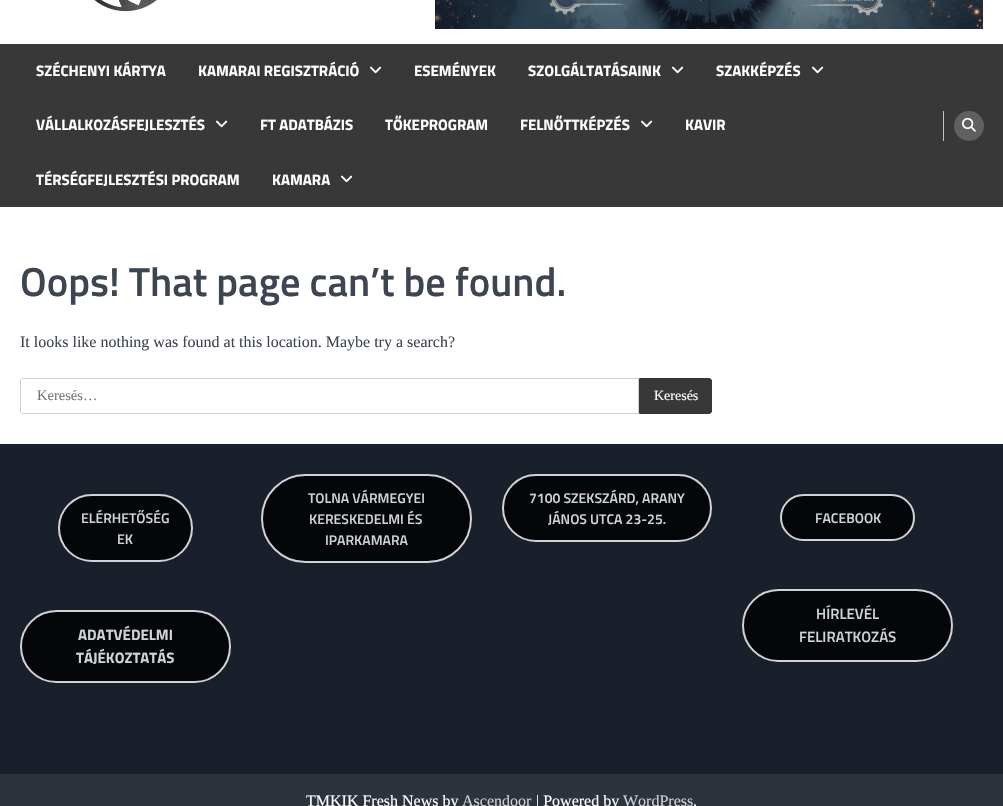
void draw(SkCanvas* c) {
SkPaint p;
p.setAntiAlias(true);
auto F=[&](const char* family, int weight, float size, bool italic = false){SkFontStyle style(weight, SkFontStyle::kNormal_Width,italic ? SkFontStyle::kItalic_Slant : SkFontStyle::kUpright_Slant);SkFont result(fontMgr->matchFamilyStyle(family, style), size);result.setSubpixel(true);return result;};
auto T=[&](const char* s, float x, float y, const SkFont& font){c->drawString(s, x, y, font, p);};
auto R=[&](float x, float y, float w, float h){c->drawRect(SkRect::MakeXYWH(x, y, w, h), p);};
auto I=[&](const char* path, float x, float y, float w, float h){auto image = SkImages::DeferredFromEncodedData(SkData::MakeFromFileName(path));c->drawImageRect(image, SkRect::MakeXYWH(x, y, w, h), SkSamplingOptions());};
auto P=[&](const char* data, bool evenOdd = false){SkPath result = *SkParsePath::FromSVGString(data);if (evenOdd) result.setFillType(SkPathFillType::kEvenOdd);return result;};
c->clear(0xffffffff);
I("1.png",94,0,63,12);
I("2.png",435,0,548,29);
p.setColor(0xff383838);
R(0,44,1003,163);
auto f1 = F("Titillium Web",700,15);
p.setColor(0xffffffff);
T("SZÉCHENYI KÁRTYA",36,76,f1);
T("KAMARAI REGISZTRÁCIÓ",198,76,f1);
I("3.png",370,66,12,8);
T("ESEMÉNYEK",414,76,f1);
T("SZOLGÁLTATÁSAINK",528,76,f1);
I("3.png",672,66,12,8);
T("SZAKKÉPZÉS",716,76,f1);
I("3.png",812,66,12,8);
T("VÁLLALKOZÁSFEJLESZTÉS",36,130,f1);
I("3.png",216,120,12,8);
T("FT ADATBÁZIS",260,130,f1);
T("TŐKEPROGRAM",385,130,f1);
T("FELNŐTTKÉPZÉS",520,130,f1);
I("3.png",641,120,12,8);
T("KAVIR",685,130,f1);
T("TÉRSÉGFEJLESZTÉSI PROGRAM",36,185,f1);
T("KAMARA",272,185,f1);
I("3.png",341,175,12,8);
p.setColor(0xffc3c3c3);
R(943,111,1,30);
p.setColor(0xff606060);
c->drawCircle(969,126,15,p);
I("4.png",962,117,14,15);
auto f2 = F("Titillium Web",600,40.6);
p.setColor(0xff3d4452);
T("Oops! That page can’t be found.",20,296,f2);
auto f3 = F("Liberation Serif",400,16);
T("It looks like nothing was found at this location. Maybe try a search?",20,347,f3);
p.setStroke(true);
p.setStrokeWidth(1);
p.setColor(0xffd3ced2);
c->drawPath(P("M23 378.5h615.5v35h-615.5c-1.5 0-2.5-1-2.5-2.5v-30c0-1.5 1-2.5 2.5-2.5z"),p);
auto f4 = F("Liberation Serif",400,14.5);
p.setStroke(false);
p.setColor(0xff757575);
T("Keresés…",37,400,f4);
p.setColor(0xff383838);
c->drawPath(P("M639.5 378.5h69.5c1.5 0 2.5 1 2.5 2.5v30c0 1.5-1 2.5-2.5 2.5h-69.5z"),p);
p.setStroke(true);
c->drawPath(P("M639.5 378.5h69.5c1.5 0 2.5 1 2.5 2.5v30c0 1.5-1 2.5-2.5 2.5h-69.5z"),p);
auto f5 = F("Liberation Serif",400,14);
p.setStroke(false);
p.setColor(0xffffffff);
T("Keresés",654,400,f5);
p.setColor(0xff1a202b);
R(0,444,1003,330);
p.setColor(0xff050609);
c->drawRoundRect(SkRect::MakeXYWH(59,495,133,66),33,33,p);
p.setStroke(true);
p.setStrokeWidth(2);
p.setColor(0xffd1d2d5);
c->drawRoundRect(SkRect::MakeXYWH(59,495,133,66),33,33,p);
auto f6 = F("Titillium Web",600,14);
p.setStroke(false);
T("ELÉRHETŐSÉG",81,523,f6);
T("EK",117,544,f6);
p.setColor(0xff050609);
c->drawRoundRect(SkRect::MakeXYWH(21,611,209,71),35.5,35.5,p);
p.setStroke(true);
p.setColor(0xffd1d2d5);
c->drawRoundRect(SkRect::MakeXYWH(21,611,209,71),35.5,35.5,p);
p.setStroke(false);
T("ADATVÉDELMI",78,640,f1);
T("TÁJÉKOZTATÁS",76,663,f1);
p.setColor(0xff050609);
c->drawRoundRect(SkRect::MakeXYWH(262,475,209,87),43.5,43.5,p);
p.setStroke(true);
p.setColor(0xffd1d2d5);
c->drawRoundRect(SkRect::MakeXYWH(262,475,209,87),43.5,43.5,p);
p.setStroke(false);
T("TOLNA VÁRMEGYEI",308,503,f6);
T("KERESKEDELMI ÉS",309,524,f6);
T("IPARKAMARA",325,545,f6);
p.setColor(0xff050609);
c->drawRoundRect(SkRect::MakeXYWH(503,475,208,66),33,33,p);
p.setStroke(true);
p.setColor(0xffd1d2d5);
c->drawRoundRect(SkRect::MakeXYWH(503,475,208,66),33,33,p);
p.setStroke(false);
T("7100 SZEKSZÁRD, ARANY",529,503,f6);
T("JÁNOS UTCA 23-25.",548,524,f6);
p.setColor(0xff050609);
c->drawRoundRect(SkRect::MakeXYWH(781,495,133,45),22.5,22.5,p);
p.setStroke(true);
p.setColor(0xffd1d2d5);
c->drawRoundRect(SkRect::MakeXYWH(781,495,133,45),22.5,22.5,p);
p.setStroke(false);
T("FACEBOOK",815,523,f6);
p.setColor(0xff050609);
c->drawRoundRect(SkRect::MakeXYWH(743,590,209,71),35.5,35.5,p);
p.setStroke(true);
p.setColor(0xffd1d2d5);
c->drawRoundRect(SkRect::MakeXYWH(743,590,209,71),35.5,35.5,p);
auto f7 = F("Titillium Web",600,15);
p.setStroke(false);
T("HÍRLEVÉL",816,619,f7);
T("FELIRATKOZÁS",799,642,f7);
p.setColor(0xff2d333c);
R(0,774,1003,32);
p.setColor(0xffffffff);
T("TMKIK Fresh News by",306,806,f3);
p.setColor(0xffd1d2d5);
T("Ascendoor",462,806,f3);
p.setColor(0xffffffff);
T("| Powered by",536,806,f3);
p.setColor(0xffd1d2d5);
T("WordPress",623,806,f3);
p.setColor(0xffffffff);
T(".",693,806,f3);
}
